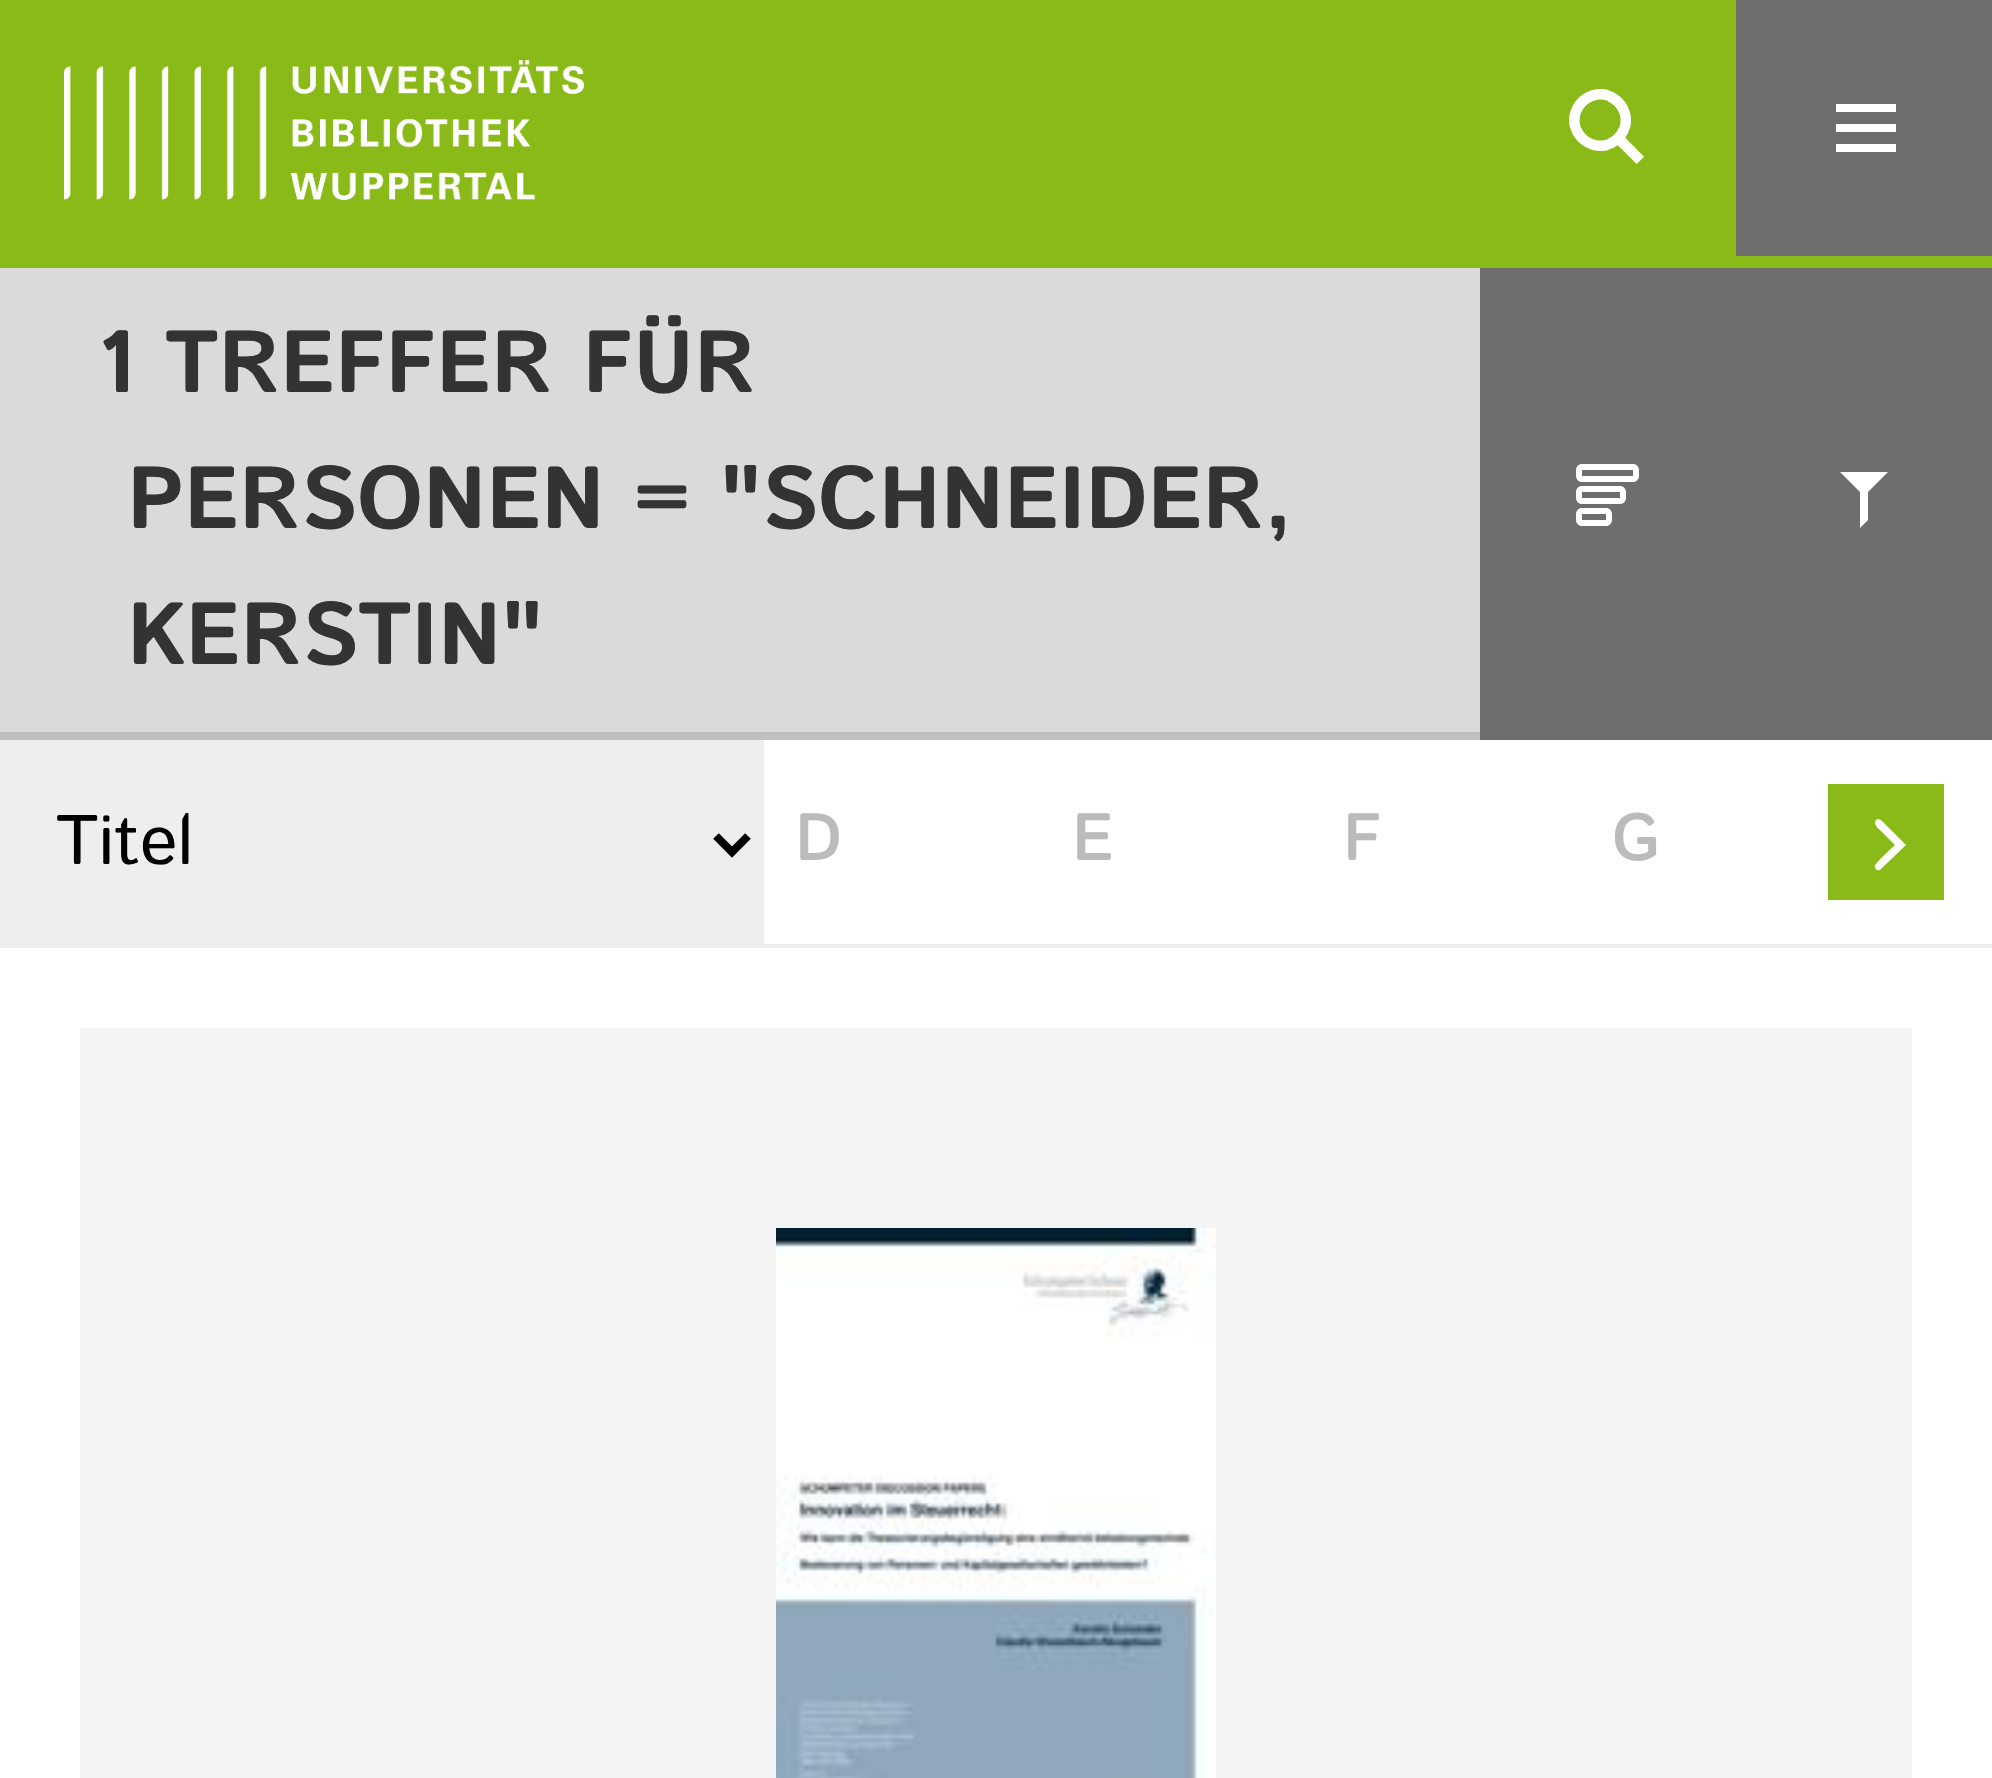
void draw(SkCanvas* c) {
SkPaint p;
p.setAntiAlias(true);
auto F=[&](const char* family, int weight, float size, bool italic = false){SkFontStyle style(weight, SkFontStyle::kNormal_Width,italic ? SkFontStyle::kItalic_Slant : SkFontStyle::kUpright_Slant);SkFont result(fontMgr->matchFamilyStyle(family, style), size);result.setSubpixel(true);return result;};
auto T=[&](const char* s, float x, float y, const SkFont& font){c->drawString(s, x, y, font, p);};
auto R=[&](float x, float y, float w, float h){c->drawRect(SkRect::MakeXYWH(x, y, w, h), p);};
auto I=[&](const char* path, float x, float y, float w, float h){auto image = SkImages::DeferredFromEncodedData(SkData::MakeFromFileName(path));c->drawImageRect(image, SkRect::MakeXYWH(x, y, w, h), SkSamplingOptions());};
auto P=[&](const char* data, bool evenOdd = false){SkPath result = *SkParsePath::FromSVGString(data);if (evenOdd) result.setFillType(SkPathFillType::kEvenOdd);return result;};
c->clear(0xffffffff);
p.setColor(0xff89ba17);
R(0,0,1736,256);
I("1.png",64,60,520,140);
I("2.png",1569,89,75,75);
p.setColor(0xff6e6e6e);
R(1736,0,256,256);
I("3.png",1836,104,60,48);
p.setColor(0xff89ba17);
R(0,256,1992,12);
p.setColor(0xffdadada);
R(0,268,1480,464);
p.setColor(0xffc0c0c0);
R(0,732,1480,8);
auto f1 = F("Istok Web",700,88);
p.setColor(0xff333333);
T("1 TREFFER FÜR",96,392,f1);
T("PERSONEN = \"SCHNEIDER,",127,528,f1);
T("KERSTIN\"",127,664,f1);
p.setColor(0xff6e6e6e);
R(1480,268,512,472);
I("4.png",1576,464,63,62);
I("5.png",1840,472,48,56);
p.setColor(0xffeeeeee);
R(764,944,1228,4);
R(0,740,764,208);
p.setStroke(true);
p.setStrokeWidth(8);
p.setColor(0xff000000);
c->drawPath(P("M716 836l16 16l16-16"),p);
auto f2 = F("Istok Web",400,70);
p.setStroke(false);
T("Titel",56,864,f2);
auto f3 = F("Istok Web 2",700,64);
p.setColor(0xffbbbbbb);
T("D",795,860,f3);
T("E",1072,860,f3);
T("F",1343,860,f3);
T("G",1612,860,f3);
p.setColor(0xff89ba17);
R(1828,784,116,116);
p.setColor(0xffffffff);
c->drawPath(P("M1876 820c-4 4 4 10 6 12l13 13c-3 3-20 18-20 21c-1 3 4 6 6 3l25-24l-21-21c-2-2-6-7-9-4z"),p);
p.setColor(0xfff4f4f4);
R(80,1028,1832,750);
I("6.png",776,1228,440,550);
}
